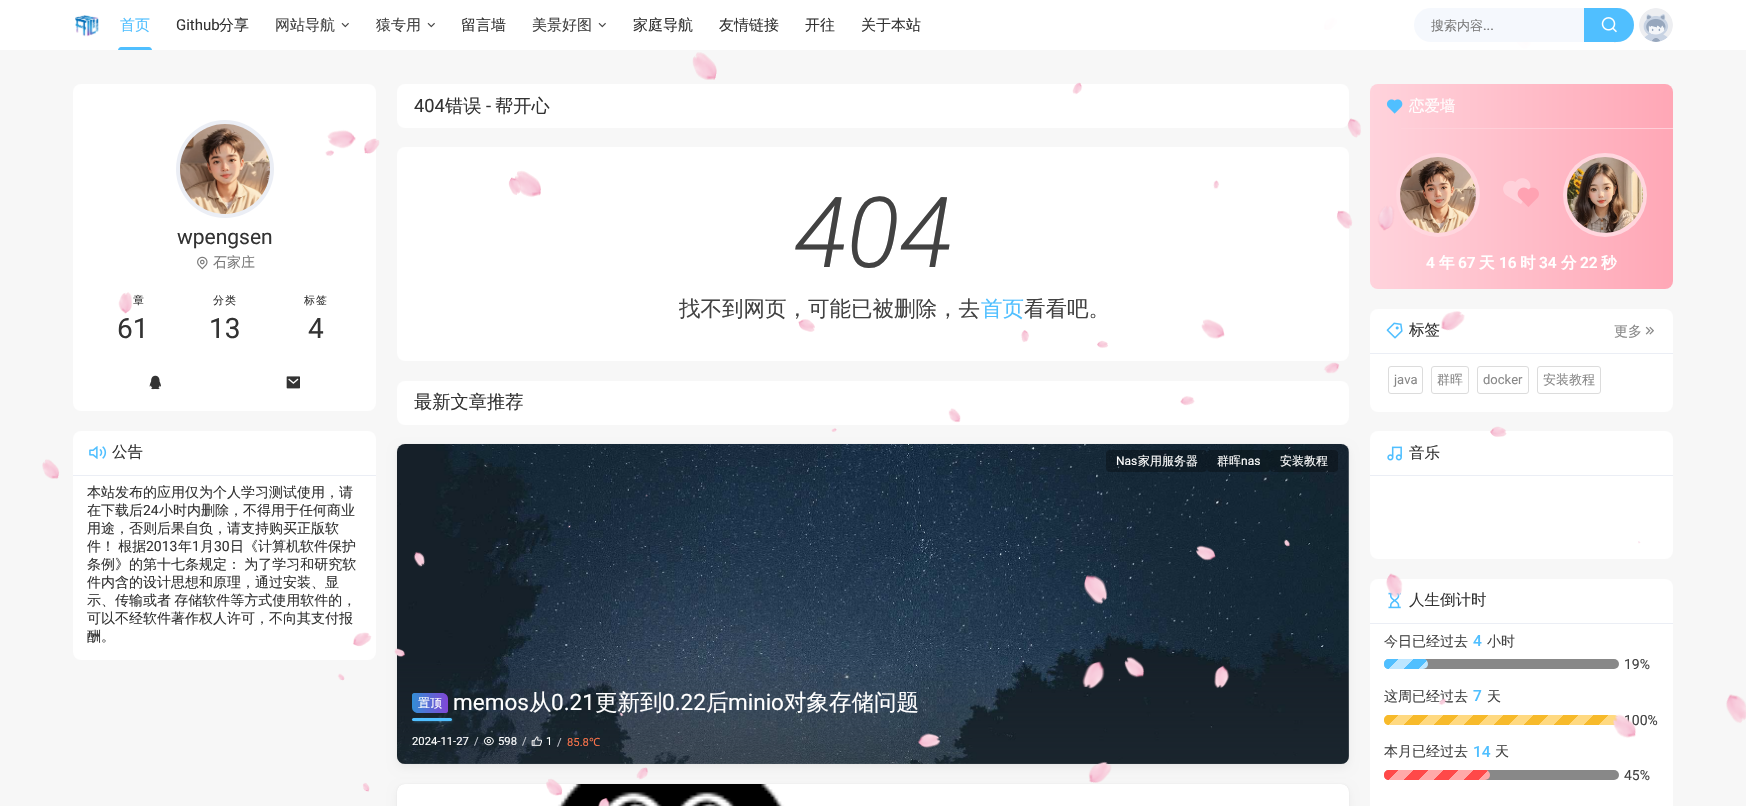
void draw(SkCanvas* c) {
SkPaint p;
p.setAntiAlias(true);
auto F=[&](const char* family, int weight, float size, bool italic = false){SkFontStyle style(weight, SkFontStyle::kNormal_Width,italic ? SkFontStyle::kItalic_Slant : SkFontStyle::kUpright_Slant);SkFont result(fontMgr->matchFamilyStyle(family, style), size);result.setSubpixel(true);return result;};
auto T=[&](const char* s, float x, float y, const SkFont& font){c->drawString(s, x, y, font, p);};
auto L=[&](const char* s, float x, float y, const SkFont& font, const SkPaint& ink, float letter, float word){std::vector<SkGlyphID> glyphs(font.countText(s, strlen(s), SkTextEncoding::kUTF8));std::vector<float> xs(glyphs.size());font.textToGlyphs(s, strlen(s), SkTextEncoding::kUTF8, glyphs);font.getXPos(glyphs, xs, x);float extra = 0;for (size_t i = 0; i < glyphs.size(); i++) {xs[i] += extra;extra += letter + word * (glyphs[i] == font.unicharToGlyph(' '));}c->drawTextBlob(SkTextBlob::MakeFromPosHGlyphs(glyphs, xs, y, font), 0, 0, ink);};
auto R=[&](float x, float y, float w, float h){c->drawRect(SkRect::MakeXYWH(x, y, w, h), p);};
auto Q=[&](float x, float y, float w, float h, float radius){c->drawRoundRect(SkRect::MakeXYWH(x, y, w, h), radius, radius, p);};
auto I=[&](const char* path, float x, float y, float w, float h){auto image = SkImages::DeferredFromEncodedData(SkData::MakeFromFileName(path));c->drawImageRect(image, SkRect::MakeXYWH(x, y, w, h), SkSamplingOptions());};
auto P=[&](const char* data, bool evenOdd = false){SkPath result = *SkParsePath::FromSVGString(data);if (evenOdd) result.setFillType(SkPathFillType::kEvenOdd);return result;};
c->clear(0xfff7f7f7);
p.setColor(0xf0ffffff);
Q(73,84,303,327,8);
p.setColor(0xffebeef5);
c->drawCircle(225,169,49,p);
I("7.png",180,124,90,90);
auto f1 = F("Roboto",400,21);
p.setColor(0xff333333);
T("wpengsen",177,244,f1);
I("8.png",197,256,11,14);
auto f2 = F("WenQuanYi Zen Hei",500,14);
p.setColor(0xff7a7a7a);
T("石家庄",213,267,f2);
auto f3 = F("WenQuanYi Zen Hei",500,11);
p.setColor(0xff333333);
L("章",133,304,f3,p,1,0);
auto f4 = F("Roboto",400,28);
T("61",117,338,f4);
L("分类",213,304,f3,p,1,0);
T("13",209,338,f4);
L("标签",304,304,f3,p,1,0);
T("4",308,338,f4);
I("9.png",149,375,12,15);
I("10.png",286,376,14,13);
p.setColor(0xf0ffffff);
Q(73,431,303,229,8);
p.setColor(0xffebeef5);
R(73,475,303,1);
I("11.png",89,446,18,13);
auto f5 = F("WenQuanYi Zen Hei",500,15.5);
p.setColor(0xff333333);
T("公告",112,457,f5);
T("本站发布的应用仅为个人学习测试使用，请",87,497,f2);
T("在下载后",87,515,f2);
auto f6 = F("Roboto",400,14);
T("24",143,515,f6);
T("小时内删除，不得用于任何商业",159,515,f2);
T("用途，否则后果自负，请支持购买正版软",87,533,f2);
L("件！ 根据",87,551,f2,p,0,-1);
T("2013",146,551,f6);
T("年",178,551,f2);
T("1",192,551,f6);
T("月",200,551,f2);
T("30",214,551,f6);
T("日《计算机软件保护",230,551,f2);
L("条例》的第十七条规定： 为了学习和研究软",87,569,f2,p,0,-1);
T("件内含的设计思想和原理，通过安装、显",87,587,f2);
L("示、传输或者 存储软件等方式使用软件的，",87,605,f2,p,0,-1);
T("可以不经软件著作权人许可，不向其支付报",87,623,f2);
T("酬。",87,641,f2);
p.setColor(0xf0ffffff);
Q(397,84,952,44,8);
auto f7 = F("Roboto",400,18.25);
p.setColor(0xff333333);
T("404",414,112,f7);
auto f8 = F("WenQuanYi Zen Hei",500,18.25);
T("错误",445,112,f8);
T("-",486,112,f7);
T("帮开心",495,112,f8);
p.setColor(0xf0ffffff);
Q(397,147,952,214,8);
auto f9 = F("Roboto",300,98,true);
p.setColor(0xff424242);
T("404",794,267,f9);
auto f10 = F("WenQuanYi Zen Hei",500,21.5);
T("找不到网页，可能已被删除，去",679,316,f10);
p.setColor(0xff50bfff);
T("首页",981,316,f10);
p.setColor(0xff424242);
T("看看吧。",1024,316,f10);
p.setColor(0xf0ffffff);
Q(397,381,952,44,8);
p.setColor(0xff333333);
T("最新文章推荐",414,408,f8);
p.setColor(0x1a000000);
p.setMaskFilter(SkMaskFilter::MakeBlur(kNormal_SkBlurStyle, .5));
c->drawRoundRect(SkRect::MakeXYWH(397,444,952,320),8,8,p);
p.setMaskFilter(nullptr);
p.setColor(0x0d000000);
p.setMaskFilter(SkMaskFilter::MakeBlur(kNormal_SkBlurStyle, 5));
c->drawRoundRect(SkRect::MakeXYWH(397,448,952,320),8,8,p);
p.setMaskFilter(nullptr);
p.setColor(0xf0ffffff);
Q(397,444,952,320,8);
I("12.png",397,444,952,320);
p.setColor(0x4d000000);
Q(1106,450,101,22,4);
auto f11 = F("Roboto",400,12);
p.setColor(0xffffffff);
T("Nas",1116,465,f11);
auto f12 = F("WenQuanYi Zen Hei",500,12);
T("家用服务器",1138,465,f12);
p.setColor(0x4d000000);
Q(1207,450,63,22,4);
p.setColor(0xffffffff);
T("群晖",1217,465,f12);
T("nas",1241,465,f11);
p.setColor(0x4d000000);
Q(1270,450,68,22,4);
p.setColor(0xffffffff);
T("安装教程",1280,465,f12);
{
const SkColor colors[] = {0x801d2931,0x001d2931};
const float stops[] = {0,1};
const SkPoint ends[] = {{873,764}, {873,660}};
p.setShader(SkGradientShader::MakeLinear(ends, colors, stops, 2, SkTileMode::kClamp));
p.setAlpha(255);
}
c->drawPath(P("M397 660h952v96c0 4.5-3.5 8-8 8h-936c-4.5 0-8-3.5-8-8z"),p);
{
const SkColor colors[] = {0xcc39a9ff,0xcc9b4fff};
const float stops[] = {0,1};
const SkPoint ends[] = {{412,703}, {448,703}};
p.setShader(SkGradientShader::MakeLinear(ends, colors, stops, 2, SkTileMode::kClamp));
p.setAlpha(255);
}
c->drawPath(P("M414 693h28c3.5 0 6 2.5 6 6v12c0 1-1 2-2 2h-28c-3.5 0-6-2.5-6-6v-12c0-1 1-2 2-2z"),p);
p.setShader(nullptr);
p.setColor(0xffffffff);
T("置顶",418,707,f12);
auto f13 = F("Roboto",400,22.5);
T("memos",453,710,f13);
auto f14 = F("WenQuanYi Zen Hei",500,22.5);
T("从",529,710,f14);
T("0.21",551,710,f13);
T("更新到",595,710,f14);
T("0.22",662,710,f13);
T("后",706,710,f14);
T("minio",728,710,f13);
T("对象存储问题",784,710,f14);
p.setColor(0xff50bfff);
p.setMaskFilter(SkMaskFilter::MakeBlur(kNormal_SkBlurStyle, 1.5));
c->drawRoundRect(SkRect::MakeXYWH(414,720,38,1),.5,.5,p);
p.setMaskFilter(nullptr);
Q(412,718,40,3,1.5);
auto f15 = F("Roboto",400,11.25);
p.setColor(0xffffffff);
T("2024-11-27",412,745,f15);
p.setColor(0xffc0c4cc);
T("/",474,745,f15);
I("13.png",483,736,11,10);
p.setColor(0xffffffff);
T("598",498,745,f15);
p.setColor(0xffc0c4cc);
T("/",522,745,f15);
I("14.png",531,736,11,10);
p.setColor(0xffffffff);
T("1",546,745,f15);
p.setColor(0xffc0c4cc);
T("/",557,746,f15);
p.setColor(0xfffb734a);
T("85.8",567,746,f15);
auto f16 = F("Noto Sans",400,11.25);
T("℃",589,746,f16);
p.setColor(0x1a000000);
p.setMaskFilter(SkMaskFilter::MakeBlur(kNormal_SkBlurStyle, .5));
c->drawRoundRect(SkRect::MakeXYWH(397,784,952,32),8,8,p);
p.setMaskFilter(nullptr);
p.setColor(0x0d000000);
p.setMaskFilter(SkMaskFilter::MakeBlur(kNormal_SkBlurStyle, 5));
c->drawRoundRect(SkRect::MakeXYWH(397,788,952,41),8,8,p);
p.setMaskFilter(nullptr);
I("15.png",397,784,952,22);
{
const SkColor colors[] = {0xffffd3dc,0xffffa7b6};
const float stops[] = {0,1};
const SkPoint ends[] = {{1370,187}, {1673,187}};
p.setShader(SkGradientShader::MakeLinear(ends, colors, stops, 2, SkTileMode::kClamp));
p.setAlpha(255);
}
Q(1370,84,303,205,8);
{
const SkColor colors[] = {0xffffd1da,0xffffced8};
const float stops[] = {0,1};
const SkPoint ends[] = {{1370,187}, {1673,187}};
p.setShader(SkGradientShader::MakeLinear(ends, colors, stops, 2, SkTileMode::kClamp));
p.setAlpha(255);
}
R(1401,128,272,1);
I("16.png",1386,99,17,15);
p.setShader(nullptr);
p.setColor(0xffffffff);
T("恋爱墙",1409,111,f5);
p.setColor(0xffffd6de);
c->drawCircle(1438,195,42,p);
I("17.png",1400,157,76,76);
I("18.png",1503,178,36,29);
c->drawCircle(1605,195,42,p);
I("19.png",1567,157,76,76);
auto f17 = F("Roboto",600,15.5);
p.setColor(0xffffffff);
T("4",1426,268,f17);
auto f18 = F("WenQuanYi Zen Hei",700,15.5);
T("年",1439,268,f18);
T("67",1458,268,f17);
T("天",1479,268,f18);
T("16",1499,268,f17);
T("时",1520,268,f18);
T("34",1539,268,f17);
T("分",1561,268,f18);
T("22",1580,268,f17);
T("秒",1601,268,f18);
p.setColor(0xf0ffffff);
Q(1370,309,303,103,8);
p.setColor(0xffebeef5);
R(1370,353,303,1);
I("20.png",1386,322,17,17);
p.setColor(0xff333333);
T("标签",1409,335,f5);
p.setColor(0xff888888);
T("更多",1614,336,f2);
I("21.png",1645,326,9,9);
p.setStroke(true);
p.setStrokeWidth(1);
p.setColor(0xffdcdcdc);
c->drawRoundRect(SkRect::MakeXYWH(1388.5,366.5,34,27),2.5,2.5,p);
auto f19 = F("Roboto",400,13);
p.setStroke(false);
p.setColor(0xff888888);
T("java",1394,384,f19);
p.setStroke(true);
p.setColor(0xffdcdcdc);
c->drawRoundRect(SkRect::MakeXYWH(1431.5,366.5,37,27),2.5,2.5,p);
auto f20 = F("WenQuanYi Zen Hei",500,13);
p.setStroke(false);
p.setColor(0xff888888);
T("群晖",1437,384,f20);
p.setStroke(true);
p.setColor(0xffdcdcdc);
c->drawRoundRect(SkRect::MakeXYWH(1477.5,366.5,51,27),2.5,2.5,p);
p.setStroke(false);
p.setColor(0xff888888);
T("docker",1483,384,f19);
p.setStroke(true);
p.setColor(0xffdcdcdc);
c->drawRoundRect(SkRect::MakeXYWH(1537.5,366.5,63,27),2.5,2.5,p);
p.setStroke(false);
p.setColor(0xff888888);
T("安装教程",1543,384,f20);
p.setColor(0xf0ffffff);
Q(1370,431,303,128,8);
p.setColor(0xffebeef5);
R(1370,475,303,1);
I("22.png",1387,446,15,15);
p.setColor(0xff333333);
T("音乐",1409,458,f5);
p.setColor(0xf0ffffff);
Q(1370,579,303,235,8);
p.setColor(0xffebeef5);
R(1370,623,303,1);
I("23.png",1388,592,13,17);
p.setColor(0xff333333);
T("人生倒计时",1409,605,f5);
p.setColor(0xff424242);
T("今日已经过去",1384,646,f2);
auto f21 = F("Roboto",500,15.5);
p.setColor(0xff50bfff);
T("4",1473,646,f21);
p.setColor(0xff424242);
T("小时",1487,646,f2);
p.setColor(0xff888888);
Q(1384,659,235,10,5);
p.setColor(0xffbde6ff);
Q(1384,659,44,10,5);
{
const SkColor colors[] = {0xff50bfff,0x0050bfff,0x0050bfff,0xff50bfff,0xff50bfff,0x0050bfff,0x00000000};
const float stops[] = {.25,.25,.5,.5,.75,.75,1};
const SkPoint ends[] = {{1384,659}, {1414,689}};
p.setShader(SkGradientShader::MakeLinear(ends, colors, stops, 7, SkTileMode::kClamp));
p.setAlpha(255);
}
c->drawPath(P("M1389 659h25v10h-25c-3 0-5-2-5-5c0-3 2-5 5-5z"),p);
{
const SkColor colors[] = {0xff50bfff,0x0050bfff,0x0050bfff,0xff50bfff,0xff50bfff,0x0050bfff,0x00000000};
const float stops[] = {.25,.25,.5,.5,.75,.75,1};
const SkPoint ends[] = {{1414,659}, {1444,689}};
p.setShader(SkGradientShader::MakeLinear(ends, colors, stops, 7, SkTileMode::kClamp));
p.setAlpha(255);
}
c->drawPath(P("M1414 659h9c3 0 5 2 5 5c0 3-2 5-5 5h-9z"),p);
p.setShader(nullptr);
p.setColor(0xff424242);
T("19%",1624,669,f6);
T("这周已经过去",1384,701,f2);
p.setColor(0xff50bfff);
T("7",1473,701,f21);
p.setColor(0xff424242);
T("天",1487,701,f2);
p.setColor(0xffffd980);
Q(1384,715,235,10,5);
{
const SkColor colors[] = {0xfff7ba2a,0x00f7ba2a,0x00f7ba2a,0xfff7ba2a,0xfff7ba2a,0x00f7ba2a,0x00000000};
const float stops[] = {.25,.25,.5,.5,.75,.75,1};
const SkPoint ends[] = {{1384,715}, {1414,745}};
p.setShader(SkGradientShader::MakeLinear(ends, colors, stops, 7, SkTileMode::kClamp));
p.setAlpha(255);
}
c->drawPath(P("M1389 715h25v10h-25c-3 0-5-2-5-5c0-3 2-5 5-5z"),p);
{
const SkColor colors[] = {0xfff7ba2a,0xffffd980,0xffffd980,0xfff7ba2a,0xfff7ba2a,0xffffd980,0xffffd980};
const float stops[] = {.25,.25,.5,.5,.75,.75,1};
const SkPoint ends[] = {{1414,715}, {1444,745}};
p.setShader(SkGradientShader::MakeLinear(ends, colors, stops, 7, SkTileMode::kClamp));
p.setAlpha(255);
}
R(1414,715,30,10);
{
const SkColor colors[] = {0xfff7ba2a,0xffffd980,0xffffd980,0xfff7ba2a,0xfff7ba2a,0xffffd980,0xffffd980};
const float stops[] = {.25,.25,.5,.5,.75,.75,1};
const SkPoint ends[] = {{1444,715}, {1474,745}};
p.setShader(SkGradientShader::MakeLinear(ends, colors, stops, 7, SkTileMode::kClamp));
p.setAlpha(255);
}
R(1444,715,30,10);
{
const SkColor colors[] = {0xfff7ba2a,0xffffd980,0xffffd980,0xfff7ba2a,0xfff7ba2a,0xffffd980,0xffffd980};
const float stops[] = {.25,.25,.5,.5,.75,.75,1};
const SkPoint ends[] = {{1474,715}, {1504,745}};
p.setShader(SkGradientShader::MakeLinear(ends, colors, stops, 7, SkTileMode::kClamp));
p.setAlpha(255);
}
R(1474,715,30,10);
{
const SkColor colors[] = {0xfff7ba2a,0xffffd980,0xffffd980,0xfff7ba2a,0xfff7ba2a,0xffffd980,0xffffd980};
const float stops[] = {.25,.25,.5,.5,.75,.75,1};
const SkPoint ends[] = {{1504,715}, {1534,745}};
p.setShader(SkGradientShader::MakeLinear(ends, colors, stops, 7, SkTileMode::kClamp));
p.setAlpha(255);
}
R(1504,715,30,10);
{
const SkColor colors[] = {0xfff7ba2a,0xffffd980,0xffffd980,0xfff7ba2a,0xfff7ba2a,0xffffd980,0xffffd980};
const float stops[] = {.25,.25,.5,.5,.75,.75,1};
const SkPoint ends[] = {{1534,715}, {1564,745}};
p.setShader(SkGradientShader::MakeLinear(ends, colors, stops, 7, SkTileMode::kClamp));
p.setAlpha(255);
}
R(1534,715,30,10);
{
const SkColor colors[] = {0xfff7ba2a,0xffffd980,0xffffd980,0xfff7ba2a,0xfff7ba2a,0xffffd980,0xffffd980};
const float stops[] = {.25,.25,.5,.5,.75,.75,1};
const SkPoint ends[] = {{1564,715}, {1594,745}};
p.setShader(SkGradientShader::MakeLinear(ends, colors, stops, 7, SkTileMode::kClamp));
p.setAlpha(255);
}
R(1564,715,30,10);
{
const SkColor colors[] = {0xfff7ba2a,0x00f7ba2a,0x00f7ba2a,0xfff7ba2a,0xfff7ba2a,0x00f7ba2a,0x00000000};
const float stops[] = {.25,.25,.5,.5,.75,.75,1};
const SkPoint ends[] = {{1594,715}, {1624,745}};
p.setShader(SkGradientShader::MakeLinear(ends, colors, stops, 7, SkTileMode::kClamp));
p.setAlpha(255);
}
R(1594,715,14,10);
p.setShader(nullptr);
p.setColor(0xff424242);
T("100%",1624,725,f6);
T("本月已经过去",1384,756,f2);
p.setColor(0xff50bfff);
T("14",1473,757,f21);
p.setColor(0xff424242);
T("天",1495,756,f2);
p.setColor(0xff888888);
Q(1384,770,235,10,5);
p.setColor(0xffffa9a9);
Q(1384,770,106,10,5);
{
const SkColor colors[] = {0xffff4949,0x00ff4949,0x00ff4949,0xffff4949,0xffff4949,0x00ff4949,0x00000000};
const float stops[] = {.25,.25,.5,.5,.75,.75,1};
const SkPoint ends[] = {{1384,770}, {1414,800}};
p.setShader(SkGradientShader::MakeLinear(ends, colors, stops, 7, SkTileMode::kClamp));
p.setAlpha(255);
}
c->drawPath(P("M1389 770h25v10h-25c-3 0-5-2-5-5c0-3 2-5 5-5z"),p);
{
const SkColor colors[] = {0xffff4949,0xffffa9a9,0xffffa9a9,0xffff4949,0xffff4949,0xffffa9a9,0xffffa9a9};
const float stops[] = {.25,.25,.5,.5,.75,.75,1};
const SkPoint ends[] = {{1414,770}, {1444,800}};
p.setShader(SkGradientShader::MakeLinear(ends, colors, stops, 7, SkTileMode::kClamp));
p.setAlpha(255);
}
R(1414,770,30,10);
{
const SkColor colors[] = {0xffff4949,0xffffa9a9,0xffffa9a9,0xffff4949,0xffff4949,0xffffa9a9,0xffffa9a9};
const float stops[] = {.25,.25,.5,.5,.75,.75,1};
const SkPoint ends[] = {{1444,770}, {1474,800}};
p.setShader(SkGradientShader::MakeLinear(ends, colors, stops, 7, SkTileMode::kClamp));
p.setAlpha(255);
}
R(1444,770,30,10);
{
const SkColor colors[] = {0xffff4949,0x00ff4949,0x00ff4949,0xffff4949,0xffff4949,0x00ff4949,0x00000000};
const float stops[] = {.25,.25,.5,.5,.75,.75,1};
const SkPoint ends[] = {{1474,770}, {1504,800}};
p.setShader(SkGradientShader::MakeLinear(ends, colors, stops, 7, SkTileMode::kClamp));
p.setAlpha(255);
}
c->drawPath(P("M1474 770h11c3 0 5 2 5 5c0 3-2 5-5 5h-11z"),p);
p.setShader(nullptr);
p.setColor(0xff424242);
T("45%",1624,780,f6);
I("1.png",42,17,1704,789);
p.setColor(0xf0ffffff);
R(0,0,1746,50);
I("2.png",75,15,24,22);
auto f22 = F("WenQuanYi Zen Hei",500,15);
p.setColor(0xff50bfff);
T("首页",120,30,f22);
c->drawPath(P("M121 47h28c1.5 0 3 1.5 3 3h-34c0-1.5 1.5-3 3-3z"),p);
auto f23 = F("Roboto",400,15);
p.setColor(0xff333333);
T("Github",176,30,f23);
T("分享",219,30,f22);
p.setColor(0xff424242);
T("网站导航",275,30,f22);
I("3.png",341,22,8,6);
T("猿专用",376,30,f22);
I("3.png",427,22,8,6);
p.setColor(0xff333333);
T("留言墙",461,30,f22);
p.setColor(0xff424242);
T("美景好图",532,30,f22);
I("3.png",598,22,8,6);
p.setColor(0xff333333);
T("家庭导航",633,30,f22);
T("友情链接",719,30,f22);
T("开往",805,30,f22);
T("关于本站",861,30,f22);
p.setColor(0xccf2f6fc);
c->drawPath(P("M1431 8h153v34h-153c-9.5 0-17-7.5-17-17c0-9.5 7.5-17 17-17z"),p);
p.setColor(0xff7a7a7a);
T("搜索内容",1431,30,f20);
auto f24 = F("Roboto",500,13);
T("...",1483,30,f24);
p.setColor(0xff50bfff);
c->drawPath(P("M1584 8h33c9.5 0 17 7.5 17 17c0 9.5-7.5 17-17 17h-33z"),p);
I("4.png",1601,17,16,16);
I("5.png",1614,42,2,1);
I("6.png",1639,8,34,34);
}
